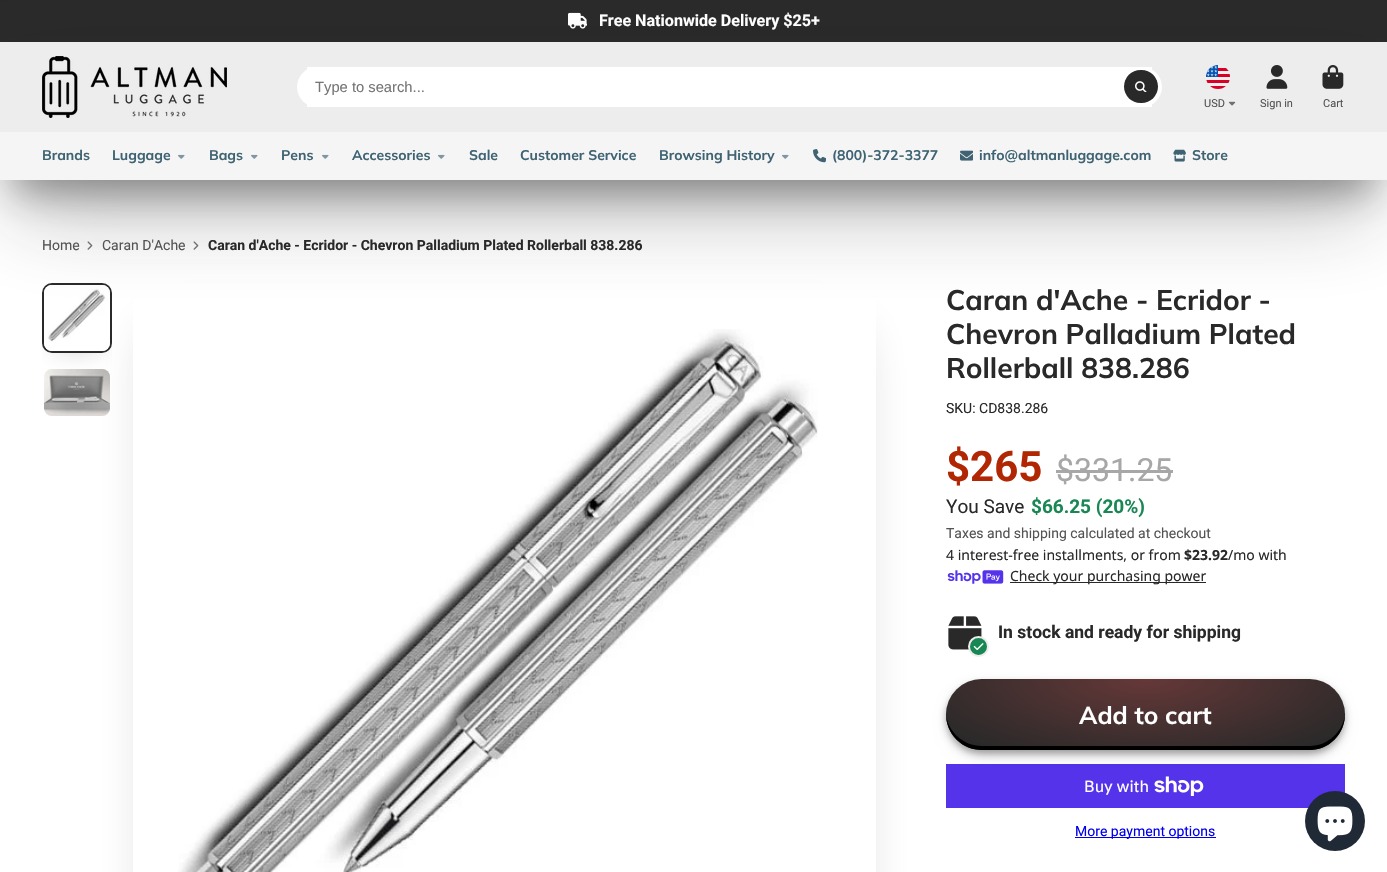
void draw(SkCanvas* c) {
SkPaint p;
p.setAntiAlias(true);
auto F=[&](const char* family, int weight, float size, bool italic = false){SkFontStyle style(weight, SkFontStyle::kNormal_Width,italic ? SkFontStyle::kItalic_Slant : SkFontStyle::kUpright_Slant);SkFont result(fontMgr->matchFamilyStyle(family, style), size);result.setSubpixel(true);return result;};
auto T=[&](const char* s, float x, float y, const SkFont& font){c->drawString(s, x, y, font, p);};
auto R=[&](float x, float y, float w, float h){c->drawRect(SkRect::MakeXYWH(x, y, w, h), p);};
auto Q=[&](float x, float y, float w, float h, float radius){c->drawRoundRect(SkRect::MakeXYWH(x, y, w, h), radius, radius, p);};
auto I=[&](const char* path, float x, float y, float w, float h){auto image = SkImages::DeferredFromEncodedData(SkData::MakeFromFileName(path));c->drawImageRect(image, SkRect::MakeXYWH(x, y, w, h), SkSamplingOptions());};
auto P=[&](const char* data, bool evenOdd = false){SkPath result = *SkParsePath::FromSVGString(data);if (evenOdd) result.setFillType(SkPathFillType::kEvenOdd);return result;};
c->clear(0xffffffff);
p.setColor(0xff292929);
R(0,0,1387,42);
I("1.png",568,12,19,17);
auto f1 = F("Roboto",700,16.1);
p.setColor(0xffffffff);
T("Free Nationwide Delivery $25+",599,26,f1);
I("12.png",87,241,6,9);
I("12.png",193,241,6,9);
p.setColor(0x661c1c1c);
p.setMaskFilter(SkMaskFilter::MakeBlur(kNormal_SkBlurStyle, 19));
c->drawRect(SkRect::MakeXYWH(14,82,1359,110),p);
p.setMaskFilter(nullptr);
c->save();
c->clipRect(SkRect::MakeXYWH(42,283,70,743));
p.setColor(0x4d1c1c1c);
p.setMaskFilter(SkMaskFilter::MakeBlur(kNormal_SkBlurStyle, 14));
c->drawRect(SkRect::MakeXYWH(56,304,42,42),p);
p.setMaskFilter(nullptr);
c->restore();
p.setStroke(true);
p.setStrokeWidth(2);
p.setColor(0xff292929);
c->drawRoundRect(SkRect::MakeXYWH(43,284,68,68),9,9,p);
I("13.png",44,285,66,66);
I("14.png",44,369,66,47);
c->save();
c->clipPath(P("M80 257h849v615h-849zm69 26h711c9 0 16 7 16 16v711c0 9-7 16-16 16h-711c-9 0-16-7-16-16v-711c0-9 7-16 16-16z",true),true);
p.setStroke(false);
p.setColor(0x4d1c1c1c);
p.setMaskFilter(SkMaskFilter::MakeBlur(kNormal_SkBlurStyle, 26));
c->drawRect(SkRect::MakeXYWH(159,336,691,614),p);
p.setMaskFilter(nullptr);
c->restore();
I("15.png",178,329,640,543);
p.setMaskFilter(SkMaskFilter::MakeBlur(kNormal_SkBlurStyle, 44));
c->drawRect(SkRect::MakeXYWH(14,100,1359,110),p);
p.setMaskFilter(nullptr);
p.setColor(0xffededed);
R(0,42,1387,90);
I("2.png",42,56,185,62);
p.setColor(0xffffffff);
R(307,67,845,40);
Q(297,67,865,40,20);
auto f2 = F("Liberation Sans",400,14.75);
p.setColor(0xff757575);
T("Type to search...",315,92,f2);
p.setColor(0xff292929);
Q(1124,70,34,33,16.5);
I("3.png",1135,81,12,11);
I("4.png",1206,65,24,24);
auto f3 = F("Roboto",400,11);
p.setColor(0xff545454);
T("USD",1204,107,f3);
I("5.png",1228,101,8,5);
I("6.png",1266,65,22,24);
T("Sign in",1260,107,f3);
I("7.png",1322,65,22,24);
T("Cart",1323,107,f3);
p.setColor(0xfff5f5f5);
R(0,132,1387,48);
auto f4 = F("Muli",700,14);
p.setColor(0xff3f6372);
T("Brands",42,160,f4);
T("Luggage",112,160,f4);
I("8.png",178,154,7,5);
T("Bags",209,160,f4);
I("8.png",251,154,7,5);
T("Pens",281,160,f4);
I("8.png",322,154,7,5);
T("Accessories",352,160,f4);
I("8.png",438,154,7,5);
T("Sale",469,160,f4);
T("Customer Service",520,160,f4);
T("Browsing History",659,160,f4);
I("8.png",782,154,7,5);
I("9.png",813,149,13,14);
T("(800)-372-3377",832,160,f4);
I("10.png",960,150,13,11);
T("info@altmanluggage.com",979,160,f4);
I("11.png",1173,149,13,13);
T("Store",1192,160,f4);
auto f5 = F("Roboto",400,14);
p.setColor(0xff545454);
T("Home",42,250,f5);
T("Caran D'Ache",102,250,f5);
auto f6 = F("Roboto",700,14);
p.setColor(0xff292929);
T("Caran d'Ache - Ecridor - Chevron Palladium Plated Rollerball 838.286",208,250,f6);
auto f7 = F("Muli",700,28.2);
T("Caran d'Ache - Ecridor -",946,310,f7);
T("Chevron Palladium Plated",946,344,f7);
T("Rollerball 838.286",946,378,f7);
T("SKU: CD838.286",946,413,f5);
auto f8 = F("Roboto",700,42);
p.setColor(0xffb12704);
T("$265",946,481,f8);
auto f9 = F("Roboto",400,32);
p.setColor(0xffa7a7a7);
T("$331.25",1056,481,f9);
R(1056,470,117,3);
auto f10 = F("Roboto",400,19);
p.setColor(0xff292929);
T("You Save",946,513,f10);
auto f11 = F("Roboto",700,19);
p.setColor(0xff198754);
T("$66.25 (20%)",1031,513,f11);
p.setColor(0xff545454);
T("Taxes and shipping calculated at checkout",946,538,f5);
auto f12 = F("Noto Sans",400,14);
p.setColor(0xff292929);
T("4 interest-free installments, or from",946,560,f12);
auto f13 = F("Noto Sans",700,14);
T("$23.92",1184,560,f13);
T("/mo with",1228,560,f12);
I("16.png",947,570,57,14);
R(1010,582,196,1);
T("Check your purchasing power",1010,581,f12);
I("17.png",948,616,34,34);
p.setColor(0xff198754);
c->drawCircle(978.5,646.5,9.5,p);
p.setStroke(true);
p.setColor(0xffededed);
c->drawCircle(978.5,646.5,9.5,p);
I("18.png",973,643,11,7);
auto f14 = F("Roboto",700,17.5);
p.setStroke(false);
p.setColor(0xff292929);
T("In stock and ready for shipping",998,638,f14);
p.setColor(0xff5433eb);
R(946,764,399,44);
I("19.png",1154,776,50,20);
p.setColor(0x26000000);
p.setMaskFilter(SkMaskFilter::MakeBlur(kNormal_SkBlurStyle, 7.5));
c->drawRoundRect(SkRect::MakeXYWH(950,690,391,64),32,32,p);
p.setMaskFilter(nullptr);
p.setColor(0x4d000000);
p.setMaskFilter(SkMaskFilter::MakeBlur(kNormal_SkBlurStyle, 3.5));
c->drawRoundRect(SkRect::MakeXYWH(946,683,399,71),35.5,35.5,p);
p.setMaskFilter(nullptr);
c->save();
c->clipPath(P("M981.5 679h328c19.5 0 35.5 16 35.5 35.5c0 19.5-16 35.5-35.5 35.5h-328c-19.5 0-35.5-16-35.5-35.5c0-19.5 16-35.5 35.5-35.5z"),true);
p.setColor(0x26000000);
p.setMaskFilter(SkMaskFilter::MakeBlur(kNormal_SkBlurStyle, 7.5));
c->drawRoundRect(SkRect::MakeXYWH(950,690,391,64),32,32,p);
p.setMaskFilter(nullptr);
p.setColor(0x4d000000);
p.setMaskFilter(SkMaskFilter::MakeBlur(kNormal_SkBlurStyle, 3.5));
c->drawRoundRect(SkRect::MakeXYWH(946,683,399,71),35.5,35.5,p);
p.setMaskFilter(nullptr);
c->restore();
{
const SkColor colors[] = {0xff663838,0xff292929};
const float stops[] = {0,.9};
SkMatrix m = SkMatrix::Translate(1146,679).preScale(282,100);
p.setShader(SkGradientShader::MakeRadial({0, 0}, 1, colors, stops, 2, SkTileMode::kClamp, 0, &m));
p.setAlpha(255);
}
Q(946,679,399,71,35.5);
p.setShader(nullptr);
p.setColor(0xff000000);
c->drawPath(P("M946 713v1c0 20 16 36 36 36h328c19 0 35-16 35-36v-1c-1 18-17 33-35 33h-328c-19 0-35-15-36-33z"),p);
auto f15 = F("Muli",700,24.5);
p.setColor(0xffffffff);
T("Add to cart",1079,724,f15);
auto f16 = F("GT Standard",400,16);
T("Buy with",1084,792,f16);
p.setColor(0xff0000ee);
R(1075,837,141,1);
T("More payment options",1075,836,f5);
p.setColor(0xff202a36);
c->drawCircle(1335,821,30,p);
I("20.png",1317,806,36,36);
}
